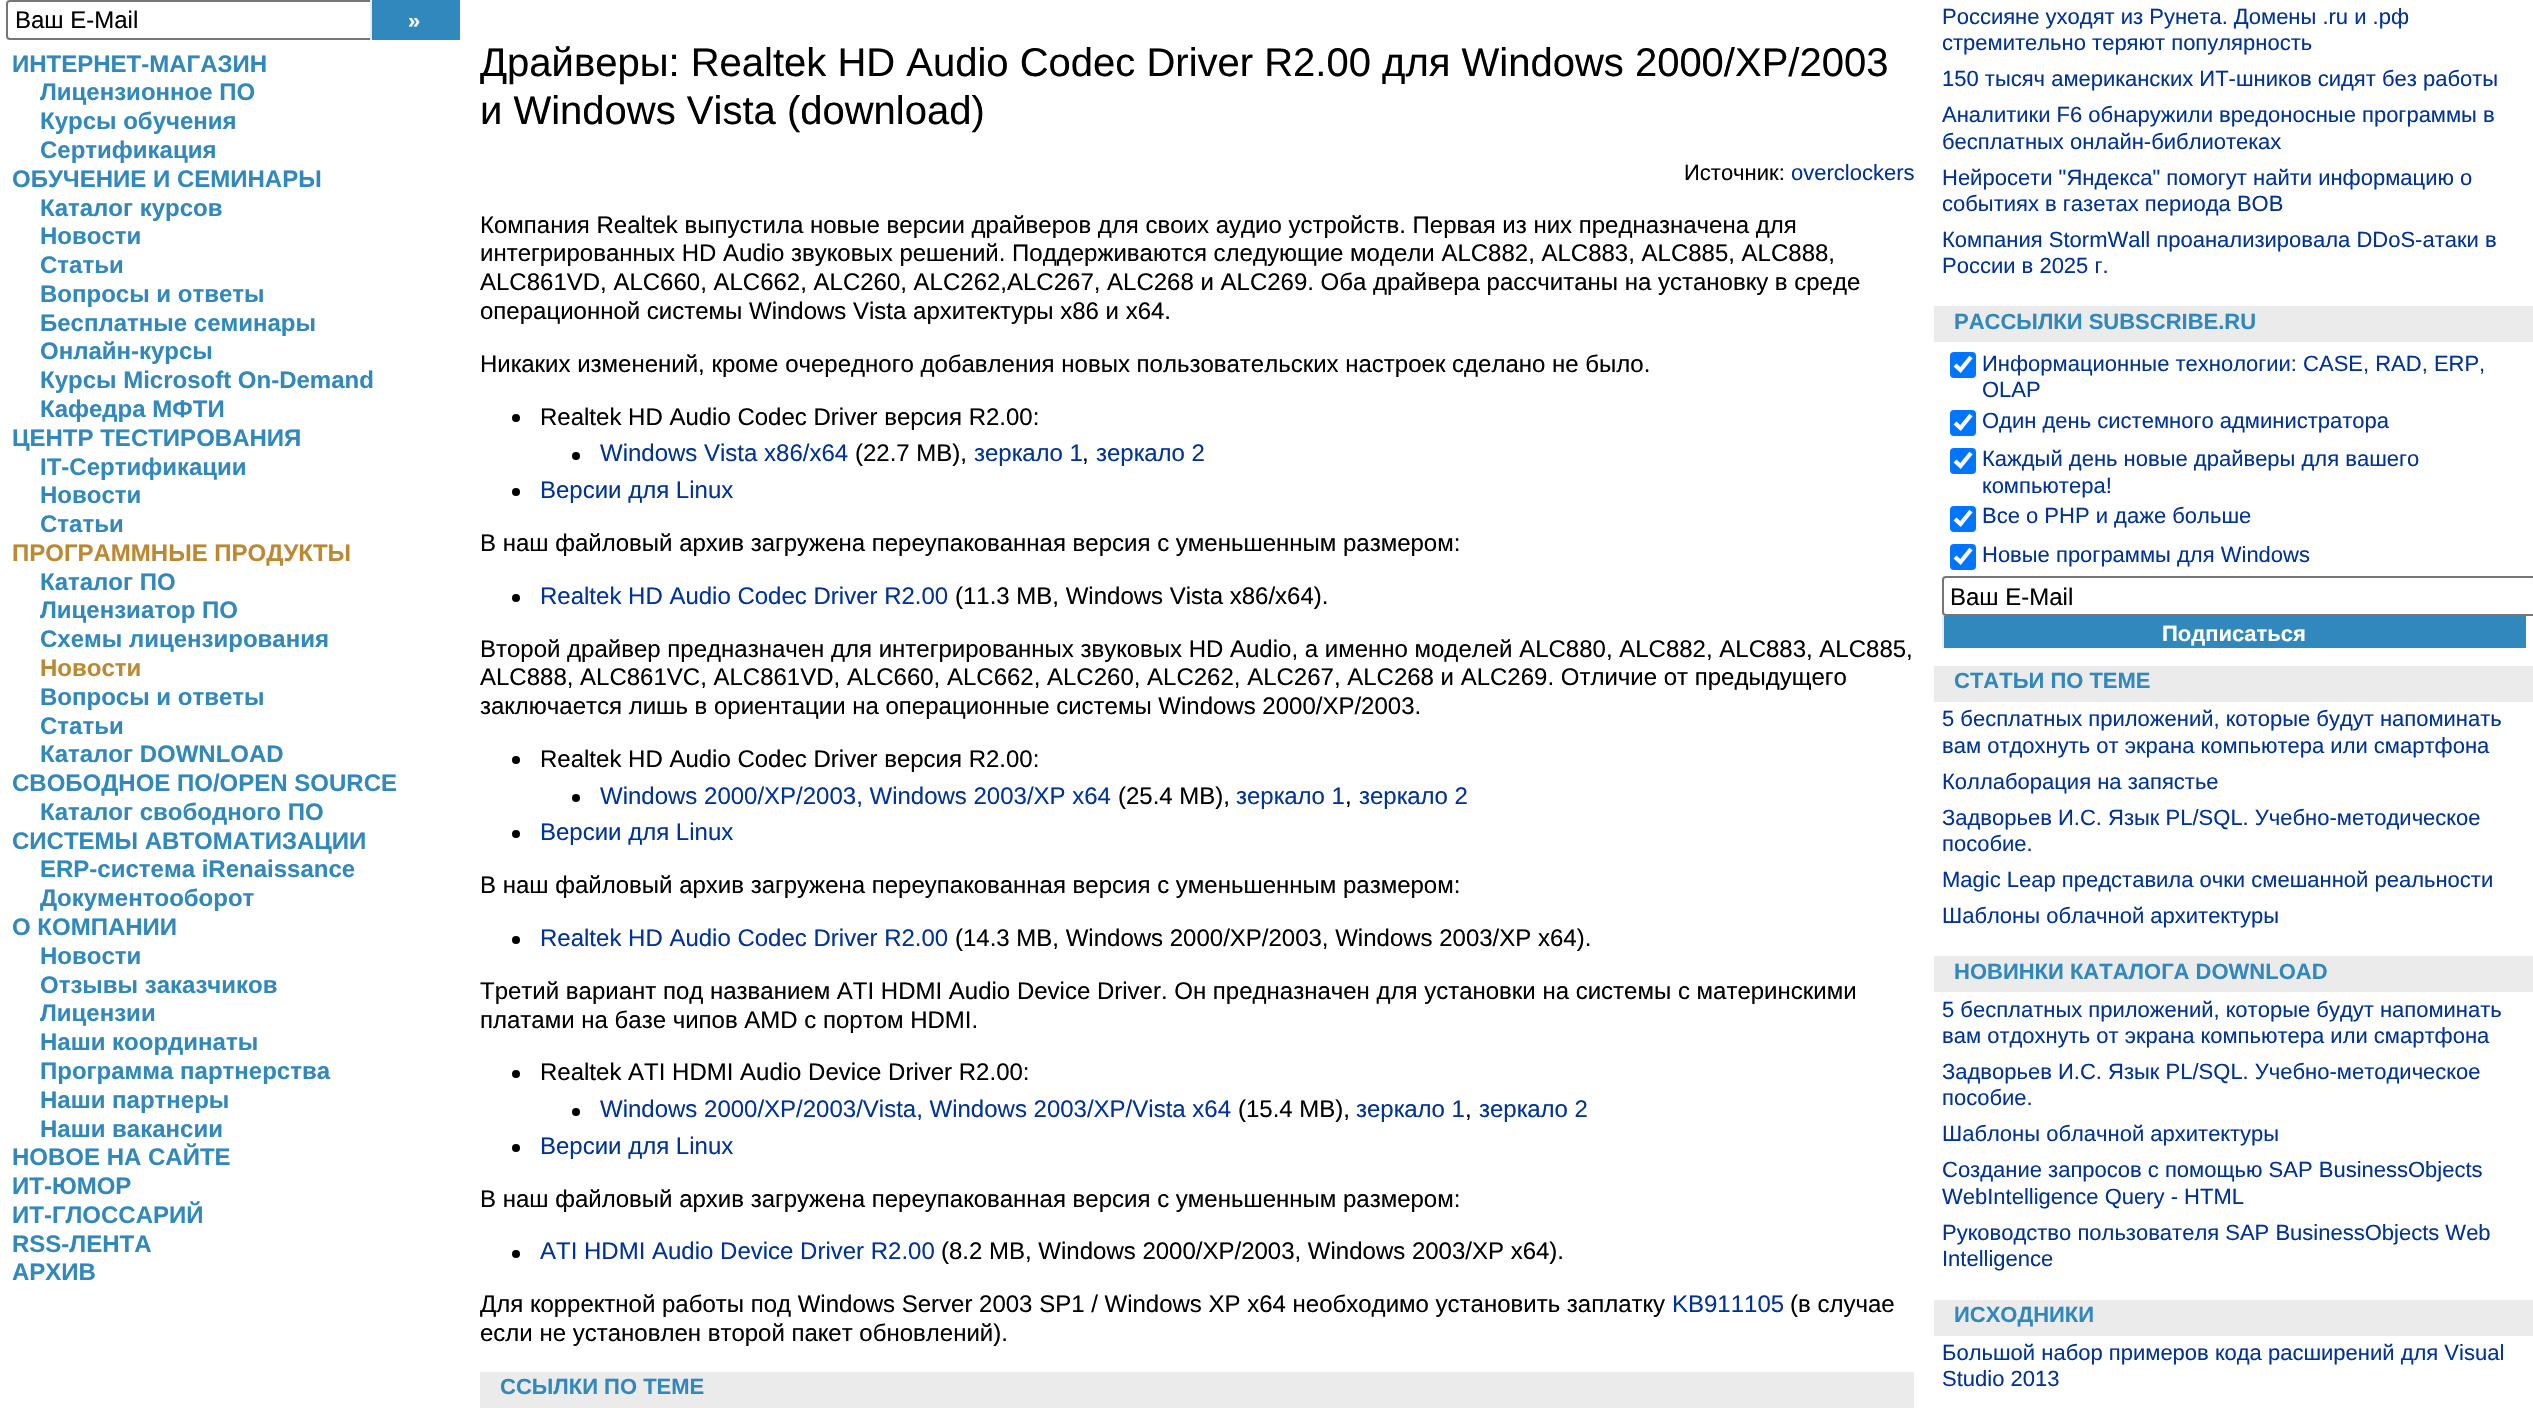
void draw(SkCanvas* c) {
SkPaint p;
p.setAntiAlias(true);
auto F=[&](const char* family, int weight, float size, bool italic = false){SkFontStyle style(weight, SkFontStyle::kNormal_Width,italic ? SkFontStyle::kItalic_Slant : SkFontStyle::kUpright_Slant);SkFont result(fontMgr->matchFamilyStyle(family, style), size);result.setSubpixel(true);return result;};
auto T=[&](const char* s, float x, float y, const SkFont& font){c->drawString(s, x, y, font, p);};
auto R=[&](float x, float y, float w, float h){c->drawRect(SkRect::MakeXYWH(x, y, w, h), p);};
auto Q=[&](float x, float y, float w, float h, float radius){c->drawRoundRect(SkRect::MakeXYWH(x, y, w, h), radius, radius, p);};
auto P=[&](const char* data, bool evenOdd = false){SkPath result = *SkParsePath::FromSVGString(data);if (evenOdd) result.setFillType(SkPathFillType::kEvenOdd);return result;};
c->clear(0xffffffff);
p.setStroke(true);
p.setStrokeWidth(2);
p.setColor(0xff767676);
c->drawRoundRect(SkRect::MakeXYWH(7,1,374,38),3,3,p);
auto f1 = F("Liberation Sans",400,24);
p.setStroke(false);
p.setColor(0xff000000);
T("Ваш E-Mail",15,28,f1);
p.setColor(0xff3188bc);
R(372,0,88,40);
p.setColor(0xffebebeb);
R(370,0,2,40);
auto f2 = F("Liberation Sans",700,22);
p.setColor(0xffffffff);
T("»",408,28,f2);
auto f3 = F("Liberation Sans",700,24);
p.setColor(0xff3188bc);
T("ИНТЕРНЕТ-МАГАЗИН",12,72,f3);
T("Лицензионное ПО",40,100,f3);
T("Курсы обучения",40,129,f3);
T("Сертификация",40,158,f3);
T("ОБУЧЕНИЕ И СЕМИНАРЫ",12,187,f3);
T("Каталог курсов",40,216,f3);
T("Новости",40,244,f3);
T("Статьи",40,273,f3);
T("Вопросы и ответы",40,302,f3);
T("Бесплатные семинары",40,331,f3);
T("Онлайн-курсы",40,359,f3);
T("Курсы Microsoft On-Demand",40,388,f3);
T("Кафедра МФТИ",40,417,f3);
T("ЦЕНТР ТЕСТИРОВАНИЯ",12,446,f3);
T("IT-Сертификации",40,475,f3);
T("Новости",40,503,f3);
T("Статьи",40,532,f3);
p.setColor(0xffbc8831);
T("ПРОГРАММНЫЕ ПРОДУКТЫ",12,561,f3);
p.setColor(0xff3188bc);
T("Каталог ПО",40,590,f3);
T("Лицензиатор ПО",40,618,f3);
T("Схемы лицензирования",40,647,f3);
p.setColor(0xffbc8831);
T("Новости",40,676,f3);
p.setColor(0xff3188bc);
T("Вопросы и ответы",40,705,f3);
T("Статьи",40,734,f3);
T("Каталог DOWNLOAD",40,762,f3);
T("СВОБОДНОЕ ПО/OPEN SOURCE",12,791,f3);
T("Каталог свободного ПО",40,820,f3);
T("СИСТЕМЫ АВТОМАТИЗАЦИИ",12,849,f3);
T("ERP-система iRenaissance",40,877,f3);
T("Документооборот",40,906,f3);
T("О КОМПАНИИ",12,935,f3);
T("Новости",40,964,f3);
T("Отзывы заказчиков",40,993,f3);
T("Лицензии",40,1021,f3);
T("Наши координаты",40,1050,f3);
T("Программа партнерства",40,1079,f3);
T("Наши партнеры",40,1108,f3);
T("Наши вакансии",40,1137,f3);
T("НОВОЕ НА САЙТЕ",12,1165,f3);
T("ИТ-ЮМОР",12,1194,f3);
T("ИТ-ГЛОССАРИЙ",12,1223,f3);
T("RSS-ЛЕНТА",12,1252,f3);
T("АРХИВ",12,1280,f3);
auto f4 = F("Liberation Sans",400,40);
p.setColor(0xff000000);
T("Драйверы: Realtek HD Audio Codec Driver R2.00 для Windows 2000/XP/2003",480,76,f4);
T("и Windows Vista (download)",480,124,f4);
auto f5 = F("Liberation Sans",400,22);
T("Источник:",1684,180,f5);
p.setColor(0xff003399);
T("overclockers",1791,180,f5);
p.setColor(0xff000000);
T("Компания Realtek выпустила новые версии драйверов для своих аудио устройств. Первая из них предназначена для",480,233,f1);
T("интегрированных HD Audio звуковых решений. Поддерживаются следующие модели ALC882, ALC883, ALC885, ALC888,",480,261,f1);
T("ALC861VD, ALC660, ALC662, ALC260, ALC262,ALC267, ALC268 и ALC269. Оба драйвера рассчитаны на установку в среде",480,290,f1);
T("операционной системы Windows Vista архитектуры х86 и х64.",480,319,f1);
T("Никаких изменений, кроме очередного добавления новых пользовательских настроек сделано не было.",480,372,f1);
c->drawCircle(516,418,4,p);
T("Realtek HD Audio Codec Driver версия R2.00:",540,425,f1);
c->drawCircle(576,456,4,p);
p.setColor(0xff003399);
T("Windows Vista x86/x64",600,461,f1);
p.setColor(0xff000000);
T("(22.7 MB),",855,461,f1);
p.setColor(0xff003399);
T("зеркало 1",974,461,f1);
T("зеркало 2",1096,461,f1);
p.setColor(0xff000000);
T(",",1082,461,f1);
c->drawCircle(516,492,4,p);
p.setColor(0xff003399);
T("Версии для Linux",540,498,f1);
p.setColor(0xff000000);
T("В наш файловый архив загружена переупакованная версия с уменьшенным размером:",480,551,f1);
c->drawCircle(516,598,4,p);
p.setColor(0xff003399);
T("Realtek HD Audio Codec Driver R2.00",540,604,f1);
p.setColor(0xff000000);
T("(11.3 MB, Windows Vista x86/x64).",955,604,f1);
T("Второй драйвер предназначен для интегрированных звуковых HD Audio, а именно моделей ALC880, ALC882, ALC883, ALC885,",480,657,f1);
T("ALC888, ALC861VC, ALC861VD, ALC660, ALC662, ALC260, ALC262, ALC267, ALC268 и ALC269. Отличие от предыдущего",480,685,f1);
T("заключается лишь в ориентации на операционные системы Windows 2000/XP/2003.",480,714,f1);
c->drawCircle(516,760,4,p);
T("Realtek HD Audio Codec Driver версия R2.00:",540,767,f1);
c->drawCircle(576,798,4,p);
p.setColor(0xff003399);
T("Windows 2000/XP/2003, Windows 2003/XP x64",600,804,f1);
p.setColor(0xff000000);
T("(25.4 MB),",1118,804,f1);
p.setColor(0xff003399);
T("зеркало 1",1236,804,f1);
T("зеркало 2",1359,804,f1);
p.setColor(0xff000000);
T(",",1345,804,f1);
c->drawCircle(516,834,4,p);
p.setColor(0xff003399);
T("Версии для Linux",540,840,f1);
p.setColor(0xff000000);
T("В наш файловый архив загружена переупакованная версия с уменьшенным размером:",480,893,f1);
c->drawCircle(516,940,4,p);
p.setColor(0xff003399);
T("Realtek HD Audio Codec Driver R2.00",540,946,f1);
p.setColor(0xff000000);
T("(14.3 MB, Windows 2000/XP/2003, Windows 2003/XP x64).",955,946,f1);
T("Третий вариант под названием ATI HDMI Audio Device Driver. Он предназначен для установки на системы с материнскими",480,999,f1);
T("платами на базе чипов AMD с портом HDMI.",480,1028,f1);
c->drawCircle(516,1074,4,p);
T("Realtek ATI HDMI Audio Device Driver R2.00:",540,1080,f1);
c->drawCircle(576,1112,4,p);
p.setColor(0xff003399);
T("Windows 2000/XP/2003/Vista, Windows 2003/XP/Vista x64",600,1117,f1);
p.setColor(0xff000000);
T("(15.4 MB),",1238,1117,f1);
p.setColor(0xff003399);
T("зеркало 1",1356,1117,f1);
T("зеркало 2",1479,1117,f1);
p.setColor(0xff000000);
T(",",1465,1117,f1);
c->drawCircle(516,1148,4,p);
p.setColor(0xff003399);
T("Версии для Linux",540,1154,f1);
p.setColor(0xff000000);
T("В наш файловый архив загружена переупакованная версия с уменьшенным размером:",480,1207,f1);
c->drawCircle(516,1254,4,p);
p.setColor(0xff003399);
T("ATI HDMI Audio Device Driver R2.00",540,1259,f1);
p.setColor(0xff000000);
T("(8.2 MB, Windows 2000/XP/2003, Windows 2003/XP x64).",941,1259,f1);
T("Для корректной работы под Windows Server 2003 SP1 / Windows XP x64 необходимо установить заплатку",480,1312,f1);
p.setColor(0xff003399);
T("KB911105",1672,1312,f1);
p.setColor(0xff000000);
T("(в случае",1790,1312,f1);
T("если не установлен второй пакет обновлений).",480,1341,f1);
p.setColor(0xffebebeb);
R(480,1372,1434,36);
p.setColor(0xff3188bc);
T("ССЫЛКИ ПО ТЕМЕ",500,1394,f2);
p.setColor(0xff003399);
T("Россияне уходят из Рунета. Домены .ru и .рф",1942,24,f5);
T("стремительно теряют популярность",1942,50,f5);
T("150 тысяч американских ИТ-шников сидят без работы",1942,86,f5);
T("Аналитики F6 обнаружили вредоносные программы в",1942,122,f5);
T("бесплатных онлайн-библиотеках",1942,149,f5);
T("Нейросети \"Яндекса\" помогут найти информацию о",1942,185,f5);
T("событиях в газетах периода ВОВ",1942,211,f5);
T("Компания StormWall проанализировала DDoS-атаки в",1942,247,f5);
T("России в 2025 г.",1942,273,f5);
p.setColor(0xffebebeb);
R(1934,306,599,36);
p.setColor(0xff3188bc);
T("РАССЫЛКИ SUBSCRIBE.RU",1954,329,f2);
p.setColor(0xff0075ff);
Q(1950,352,26,26,4);
p.setStroke(true);
p.setStrokeWidth(4.2);
p.setColor(0xffffffff);
c->drawPath(P("M1955 365l5.5 5l10.5-13"),p);
p.setStroke(false);
p.setColor(0xff003399);
T("Информационные технологии: CASE, RAD, ERP,",1982,371,f5);
T("OLAP",1982,397,f5);
p.setColor(0xff0075ff);
Q(1950,410,26,26,4);
p.setStroke(true);
p.setColor(0xffffffff);
c->drawPath(P("M1955 423l5.5 5l10.5-13"),p);
p.setStroke(false);
p.setColor(0xff003399);
T("Один день системного администратора",1982,428,f5);
p.setColor(0xff0075ff);
Q(1950,448,26,26,4);
p.setStroke(true);
p.setColor(0xffffffff);
c->drawPath(P("M1955 461l5.5 5l10.5-13"),p);
p.setStroke(false);
p.setColor(0xff003399);
T("Каждый день новые драйверы для вашего",1982,466,f5);
T("компьютера!",1982,493,f5);
p.setColor(0xff0075ff);
Q(1950,506,26,26,4);
p.setStroke(true);
p.setColor(0xffffffff);
c->drawPath(P("M1955 519l5.5 5l10.5-13"),p);
p.setStroke(false);
p.setColor(0xff003399);
T("Все о PHP и даже больше",1982,523,f5);
p.setColor(0xff0075ff);
Q(1950,544,26,26,4);
p.setStroke(true);
p.setColor(0xffffffff);
c->drawPath(P("M1955 557l5.5 5l10.5-13"),p);
p.setStroke(false);
p.setColor(0xff003399);
T("Новые программы для Windows",1982,562,f5);
p.setStroke(true);
p.setStrokeWidth(2);
p.setColor(0xff767676);
c->drawRoundRect(SkRect::MakeXYWH(1943,577,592,38),3,3,p);
p.setStroke(false);
p.setColor(0xff000000);
T("Ваш E-Mail",1950,605,f1);
p.setColor(0xff3188bc);
R(1944,616,582,32);
p.setColor(0xffebebeb);
R(1942,616,2,32);
p.setColor(0xffffffff);
T("Подписаться",2162,641,f2);
p.setColor(0xffebebeb);
R(1934,666,599,36);
p.setColor(0xff3188bc);
T("СТАТЬИ ПО ТЕМЕ",1954,688,f2);
p.setColor(0xff003399);
T("5 бесплатных приложений, которые будут напоминать",1942,726,f5);
T("вам отдохнуть от экрана компьютера или смартфона",1942,753,f5);
T("Коллаборация на запястье",1942,789,f5);
T("Задворьев И.С. Язык PL/SQL. Учебно-методическое",1942,825,f5);
T("пособие.",1942,851,f5);
T("Magic Leap представила очки смешанной реальности",1942,887,f5);
T("Шаблоны облачной архитектуры",1942,923,f5);
p.setColor(0xffebebeb);
R(1934,956,599,36);
p.setColor(0xff3188bc);
T("НОВИНКИ КАТАЛОГА DOWNLOAD",1954,979,f2);
p.setColor(0xff003399);
T("5 бесплатных приложений, которые будут напоминать",1942,1017,f5);
T("вам отдохнуть от экрана компьютера или смартфона",1942,1043,f5);
T("Задворьев И.С. Язык PL/SQL. Учебно-методическое",1942,1079,f5);
T("пособие.",1942,1105,f5);
T("Шаблоны облачной архитектуры",1942,1141,f5);
T("Создание запросов с помощью SAP BusinessObjects",1942,1177,f5);
T("WebIntelligence Query - HTML",1942,1204,f5);
T("Руководство пользователя SAP BusinessObjects Web",1942,1240,f5);
T("Intelligence",1942,1266,f5);
p.setColor(0xffebebeb);
R(1934,1300,599,36);
p.setColor(0xff3188bc);
T("ИСХОДНИКИ",1954,1322,f2);
p.setColor(0xff003399);
T("Большой набор примеров кода расширений для Visual",1942,1360,f5);
T("Studio 2013",1942,1386,f5);
}
